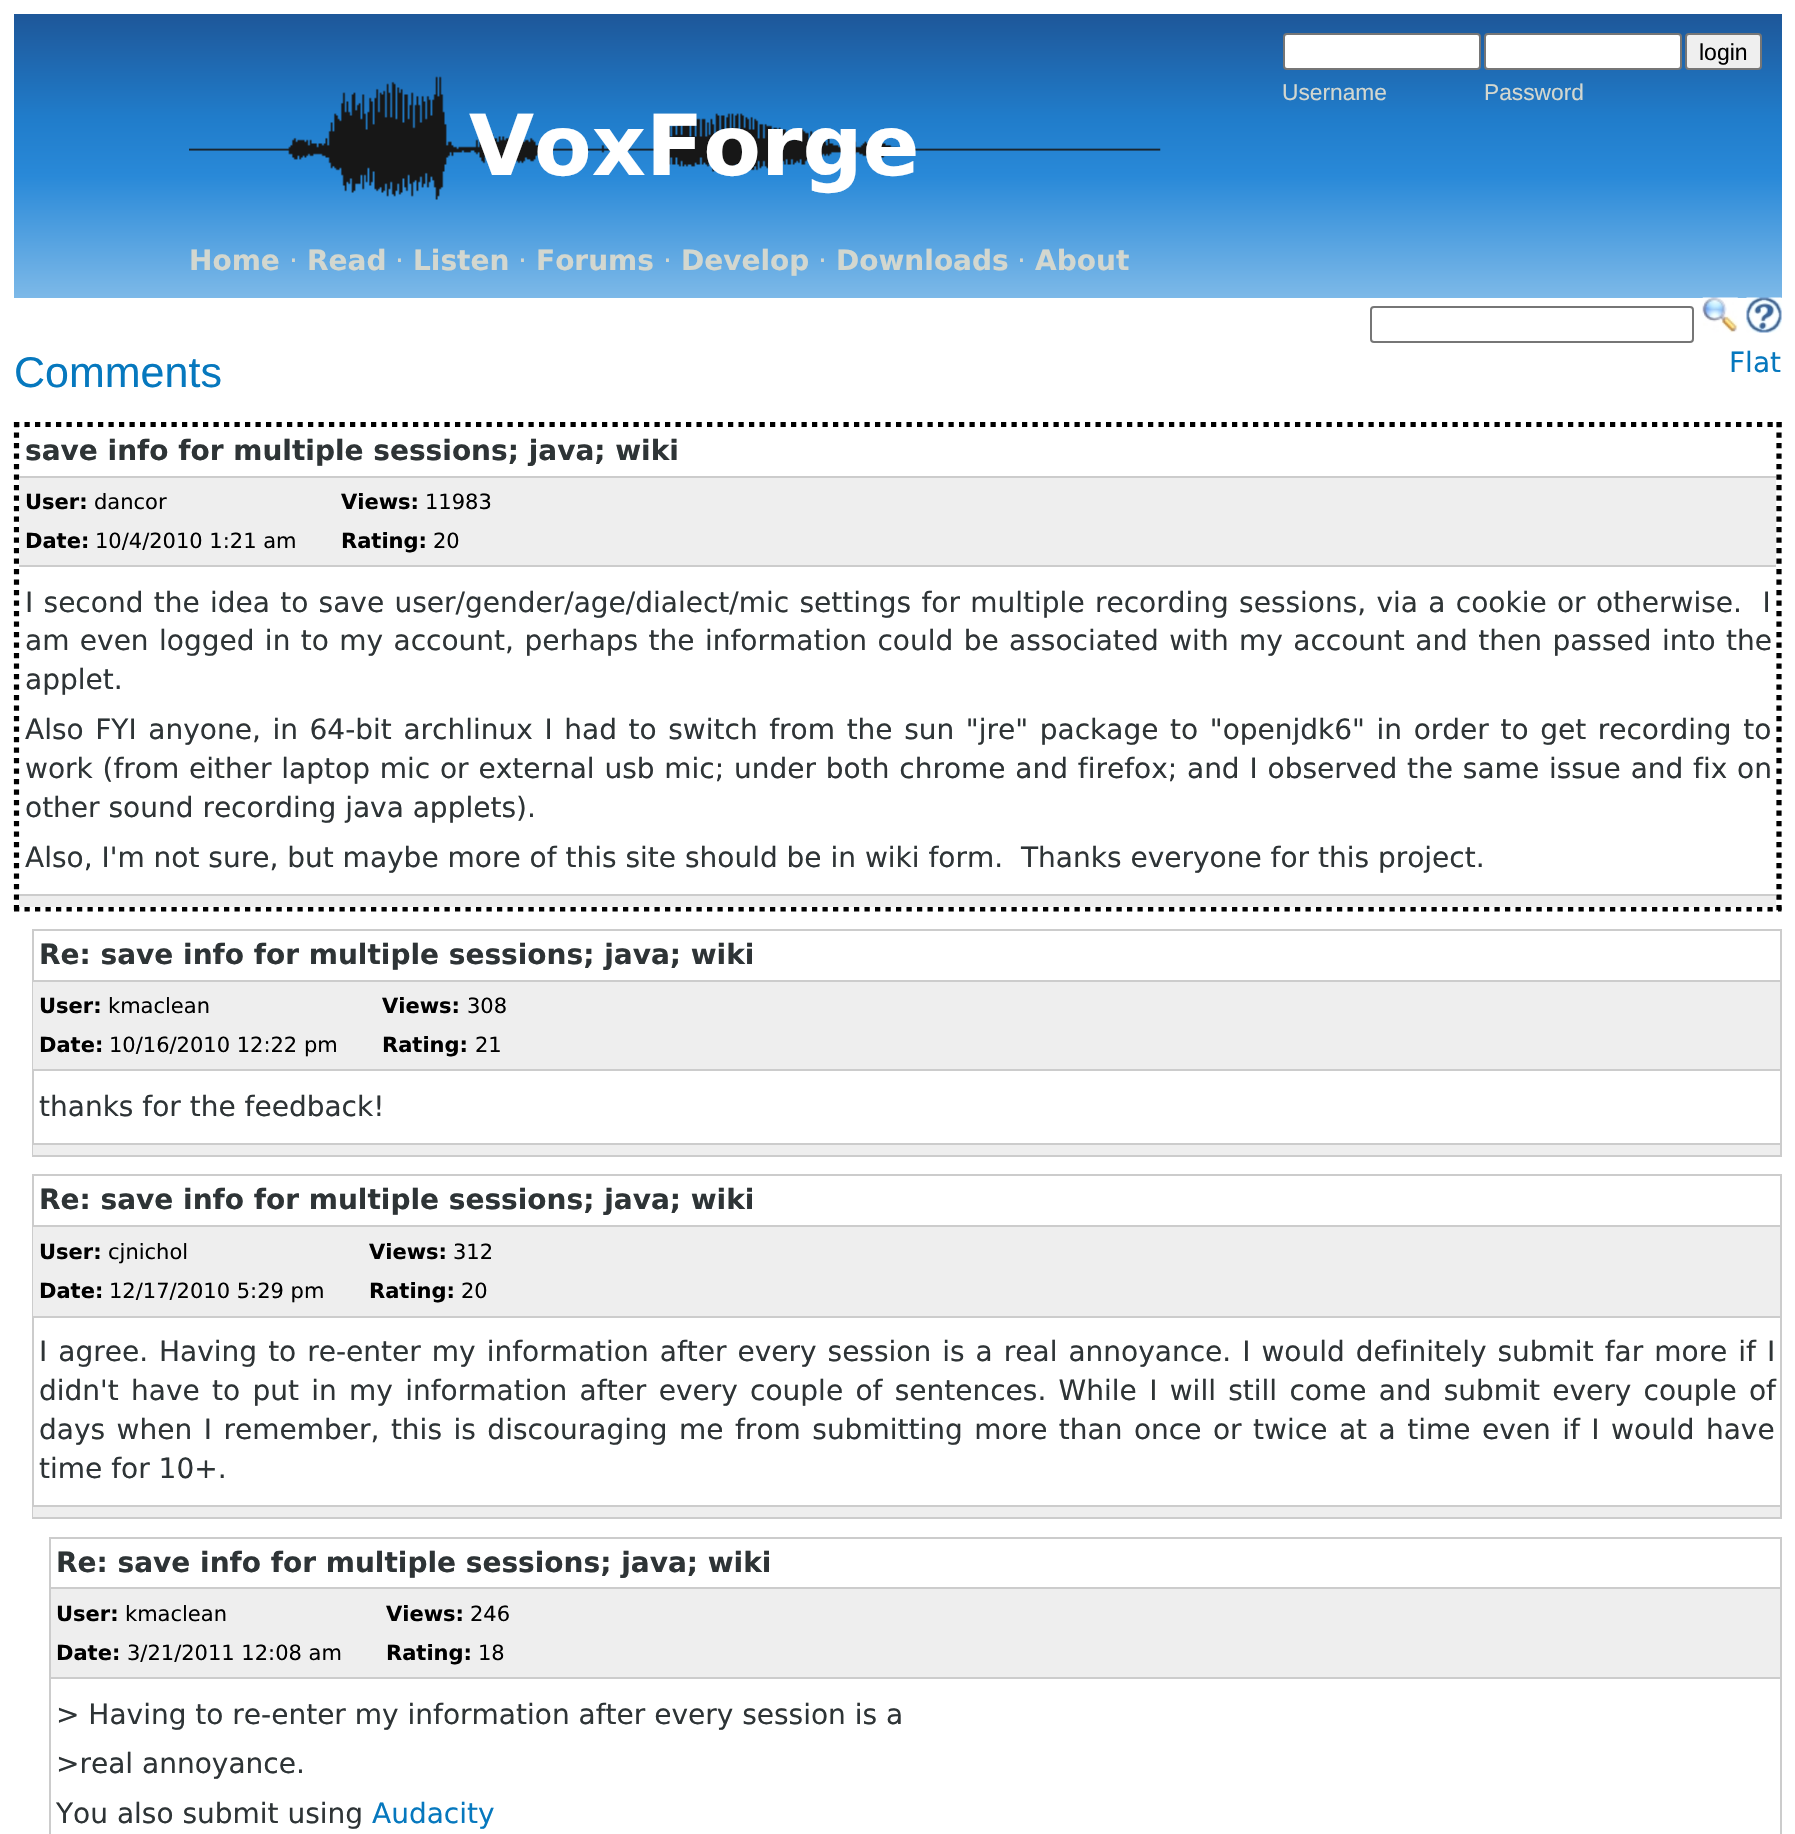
void draw(SkCanvas* c) {
SkPaint p;
p.setAntiAlias(true);
auto F=[&](const char* family, int weight, float size, bool italic = false){SkFontStyle style(weight, SkFontStyle::kNormal_Width,italic ? SkFontStyle::kItalic_Slant : SkFontStyle::kUpright_Slant);SkFont result(fontMgr->matchFamilyStyle(family, style), size);result.setSubpixel(true);return result;};
auto T=[&](const char* s, float x, float y, const SkFont& font){c->drawString(s, x, y, font, p);};
auto L=[&](const char* s, float x, float y, const SkFont& font, const SkPaint& ink, float letter, float word){std::vector<SkGlyphID> glyphs(font.countText(s, strlen(s), SkTextEncoding::kUTF8));std::vector<float> xs(glyphs.size());font.textToGlyphs(s, strlen(s), SkTextEncoding::kUTF8, glyphs);font.getXPos(glyphs, xs, x);float extra = 0;for (size_t i = 0; i < glyphs.size(); i++) {xs[i] += extra;extra += letter + word * (glyphs[i] == font.unicharToGlyph(' '));}c->drawTextBlob(SkTextBlob::MakeFromPosHGlyphs(glyphs, xs, y, font), 0, 0, ink);};
auto R=[&](float x, float y, float w, float h){c->drawRect(SkRect::MakeXYWH(x, y, w, h), p);};
auto I=[&](const char* path, float x, float y, float w, float h){auto image = SkImages::DeferredFromEncodedData(SkData::MakeFromFileName(path));c->drawImageRect(image, SkRect::MakeXYWH(x, y, w, h), SkSamplingOptions());};
auto P=[&](const char* data, bool evenOdd = false){SkPath result = *SkParsePath::FromSVGString(data);if (evenOdd) result.setFillType(SkPathFillType::kEvenOdd);return result;};
c->clear(0xffffffff);
{
const SkColor colors[] = {0xff1e5799,0xff207cca,0xff2989d8,0xff7db9e8};
const float stops[] = {0,.36,.57,1};
const SkPoint ends[] = {{898,14}, {898,298}};
p.setShader(SkGradientShader::MakeLinear(ends, colors, stops, 4, SkTileMode::kClamp));
p.setAlpha(255);
}
R(14,14,1768,284);
p.setShader(nullptr);
p.setColor(0xffffffff);
c->drawRoundRect(SkRect::MakeXYWH(1284,34,196,35),3,3,p);
p.setStroke(true);
p.setStrokeWidth(2);
p.setColor(0xff767676);
c->drawRoundRect(SkRect::MakeXYWH(1284,34,196,35),3,3,p);
p.setStroke(false);
p.setColor(0xffffffff);
c->drawRoundRect(SkRect::MakeXYWH(1485,34,196,35),3,3,p);
p.setStroke(true);
p.setColor(0xff767676);
c->drawRoundRect(SkRect::MakeXYWH(1485,34,196,35),3,3,p);
p.setStroke(false);
p.setColor(0xffefefef);
c->drawRoundRect(SkRect::MakeXYWH(1686,34,75,35),3,3,p);
p.setStroke(true);
p.setColor(0xff767676);
c->drawRoundRect(SkRect::MakeXYWH(1686,34,75,35),3,3,p);
auto f1 = F("Liberation Sans",400,23);
p.setStroke(false);
p.setColor(0xff000000);
T("login",1699,60,f1);
auto f2 = F("Liberation Sans",400,22.75);
p.setColor(0xffd3d7cf);
T("Username",1282,100,f2);
T("Password",1484,100,f2);
I("1.png",189,76,972,124);
auto f3 = F("DejaVu Sans",700,84);
p.setColor(0xffffffff);
T("VoxForge",469,175,f3);
auto f4 = F("DejaVu Sans",700,28);
p.setColor(0xffd3d7cf);
T("Home",189,270,f4);
auto f5 = F("DejaVu Sans",400,28);
T("·",289,270,f5);
T("Read",307,270,f4);
T("·",395,270,f5);
T("Listen",413,270,f4);
T("·",518,270,f5);
T("Forums",536,270,f4);
T("·",663,270,f5);
T("Develop",681,270,f4);
T("·",818,270,f5);
T("Downloads",836,270,f4);
T("·",1017,270,f5);
T("About",1035,270,f4);
p.setStroke(true);
p.setColor(0xff767676);
c->drawRoundRect(SkRect::MakeXYWH(1371,307,322,35),3,3,p);
I("2.png",1702,297,36,36);
I("3.png",1746,297,36,36);
auto f6 = F("Liberation Sans",400,43);
p.setStroke(false);
p.setColor(0xff0678be);
T("Comments",14,387,f6);
T("Flat",1729,372,f5);
p.setStroke(true);
p.setStrokeWidth(5.2);
p.setColor(0xff000000);
p.setPathEffect(SkDashPathEffect::Make({{5.25f,5.25f}}, 0));
c->drawPath(P("M14 424.5h1767.5"),p);
p.setPathEffect(nullptr);
p.setPathEffect(SkDashPathEffect::Make({{5.25f,5.25f}}, 0));
c->drawPath(P("M1779 422v490"),p);
p.setPathEffect(nullptr);
p.setPathEffect(SkDashPathEffect::Make({{5.25f,5.25f}}, 0));
c->drawPath(P("M14 909h1767.5"),p);
p.setPathEffect(nullptr);
p.setPathEffect(SkDashPathEffect::Make({{5.25f,5.25f}}, 0));
c->drawPath(P("M16.5 422v490"),p);
p.setPathEffect(nullptr);
p.setStroke(false);
p.setColor(0xffcccccc);
R(19,476,1757,2);
p.setColor(0xff2e3436);
T("save info for multiple sessions; java; wiki",25,460,f4);
p.setColor(0xffeeeeee);
R(19,478,1757,87);
p.setColor(0xffcccccc);
R(19,565,1757,2);
auto f7 = F("DejaVu Sans",700,21);
p.setColor(0xff000000);
T("User:",25,509,f7);
auto f8 = F("DejaVu Sans",400,21);
T("dancor",94,509,f8);
T("Date:",25,548,f7);
T("10/4/2010 1:21 am",95,548,f8);
T("Views:",341,509,f7);
T("11983",425,509,f8);
T("Rating:",341,548,f7);
T("20",433,548,f8);
p.setColor(0xff2e3436);
L("I second the idea to save user/gender/age/dialect/mic settings for multiple recording sessions, via a cookie or otherwise.  I",25,612,f5,p,0,1.4);
L("am even logged in to my account, perhaps the information could be associated with my account and then passed into the",25,650,f5,p,0,1.5);
T("applet.",25,689,f5);
L("Also FYI anyone, in 64-bit archlinux I had to switch from the sun \"jre\" package to \"openjdk6\" in order to get recording to",25,739,f5,p,0,2.7);
L("work (from either laptop mic or external usb mic; under both chrome and firefox; and I observed the same issue and fix on",25,778,f5,p,0,.9);
T("other sound recording java applets).",25,817,f5);
T("Also, I'm not sure, but maybe more of this site should be in wiki form.  Thanks everyone for this project.",25,867,f5);
p.setColor(0xffeeeeee);
R(19,896,1757,11);
p.setColor(0xffcccccc);
R(19,894,1757,2);
p.setStroke(true);
p.setStrokeWidth(2);
c->drawRect(SkRect::MakeXYWH(33,930,1748,226),p);
p.setStroke(false);
R(33,980,1747,2);
p.setColor(0xff2e3436);
T("Re: save info for multiple sessions; java; wiki",39,964,f4);
p.setColor(0xffeeeeee);
R(33,982,1747,87);
p.setColor(0xffcccccc);
R(33,1069,1747,2);
p.setColor(0xff000000);
T("User:",39,1013,f7);
T("kmaclean",108,1013,f8);
T("Date:",39,1052,f7);
T("10/16/2010 12:22 pm",109,1052,f8);
T("Views:",382,1013,f7);
T("308",467,1013,f8);
T("Rating:",382,1052,f7);
T("21",475,1052,f8);
p.setColor(0xff2e3436);
T("thanks for the feedback!",39,1116,f5);
p.setColor(0xffeeeeee);
R(33,1145,1747,10);
p.setColor(0xffcccccc);
R(33,1143,1747,2);
p.setStroke(true);
c->drawRect(SkRect::MakeXYWH(33,1175,1748,343),p);
p.setStroke(false);
R(33,1225,1747,2);
p.setColor(0xff2e3436);
T("Re: save info for multiple sessions; java; wiki",39,1209,f4);
p.setColor(0xffeeeeee);
R(33,1227,1747,89);
p.setColor(0xffcccccc);
R(33,1316,1747,2);
p.setColor(0xff000000);
T("User:",39,1259,f7);
T("cjnichol",108,1259,f8);
T("Date:",39,1298,f7);
T("12/17/2010 5:29 pm",109,1298,f8);
T("Views:",369,1259,f7);
T("312",453,1259,f8);
T("Rating:",369,1298,f7);
T("20",461,1298,f8);
p.setColor(0xff2e3436);
L("I agree. Having to re-enter my information after every session is a real annoyance. I would definitely submit far more if I",39,1361,f5,p,0,2.1);
L("didn't have to put in my information after every couple of sentences. While I will still come and submit every couple of",39,1400,f5,p,0,3.4);
L("days when I remember, this is discouraging me from submitting more than once or twice at a time even if I would have",39,1439,f5,p,0,2.6);
T("time for 10+.",39,1478,f5);
p.setColor(0xffeeeeee);
R(33,1507,1747,10);
p.setColor(0xffcccccc);
R(33,1505,1747,2);
p.setStroke(true);
c->drawRect(SkRect::MakeXYWH(50,1538,1731,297),p);
p.setStroke(false);
R(51,1587,1729,2);
p.setColor(0xff2e3436);
T("Re: save info for multiple sessions; java; wiki",56,1572,f4);
p.setColor(0xffeeeeee);
R(51,1589,1729,88);
p.setColor(0xffcccccc);
R(51,1677,1729,2);
p.setColor(0xff000000);
T("User:",56,1621,f7);
T("kmaclean",125,1621,f8);
T("Date:",56,1660,f7);
T("3/21/2011 12:08 am",127,1660,f8);
T("Views:",386,1621,f7);
T("246",470,1621,f8);
T("Rating:",386,1660,f7);
T("18",478,1660,f8);
p.setColor(0xff2e3436);
T("> Having to re-enter my information after every session is a",56,1724,f5);
T(">real annoyance.",56,1773,f5);
T("You also submit using",56,1823,f5);
p.setColor(0xff0678be);
T("Audacity",372,1823,f5);
}
